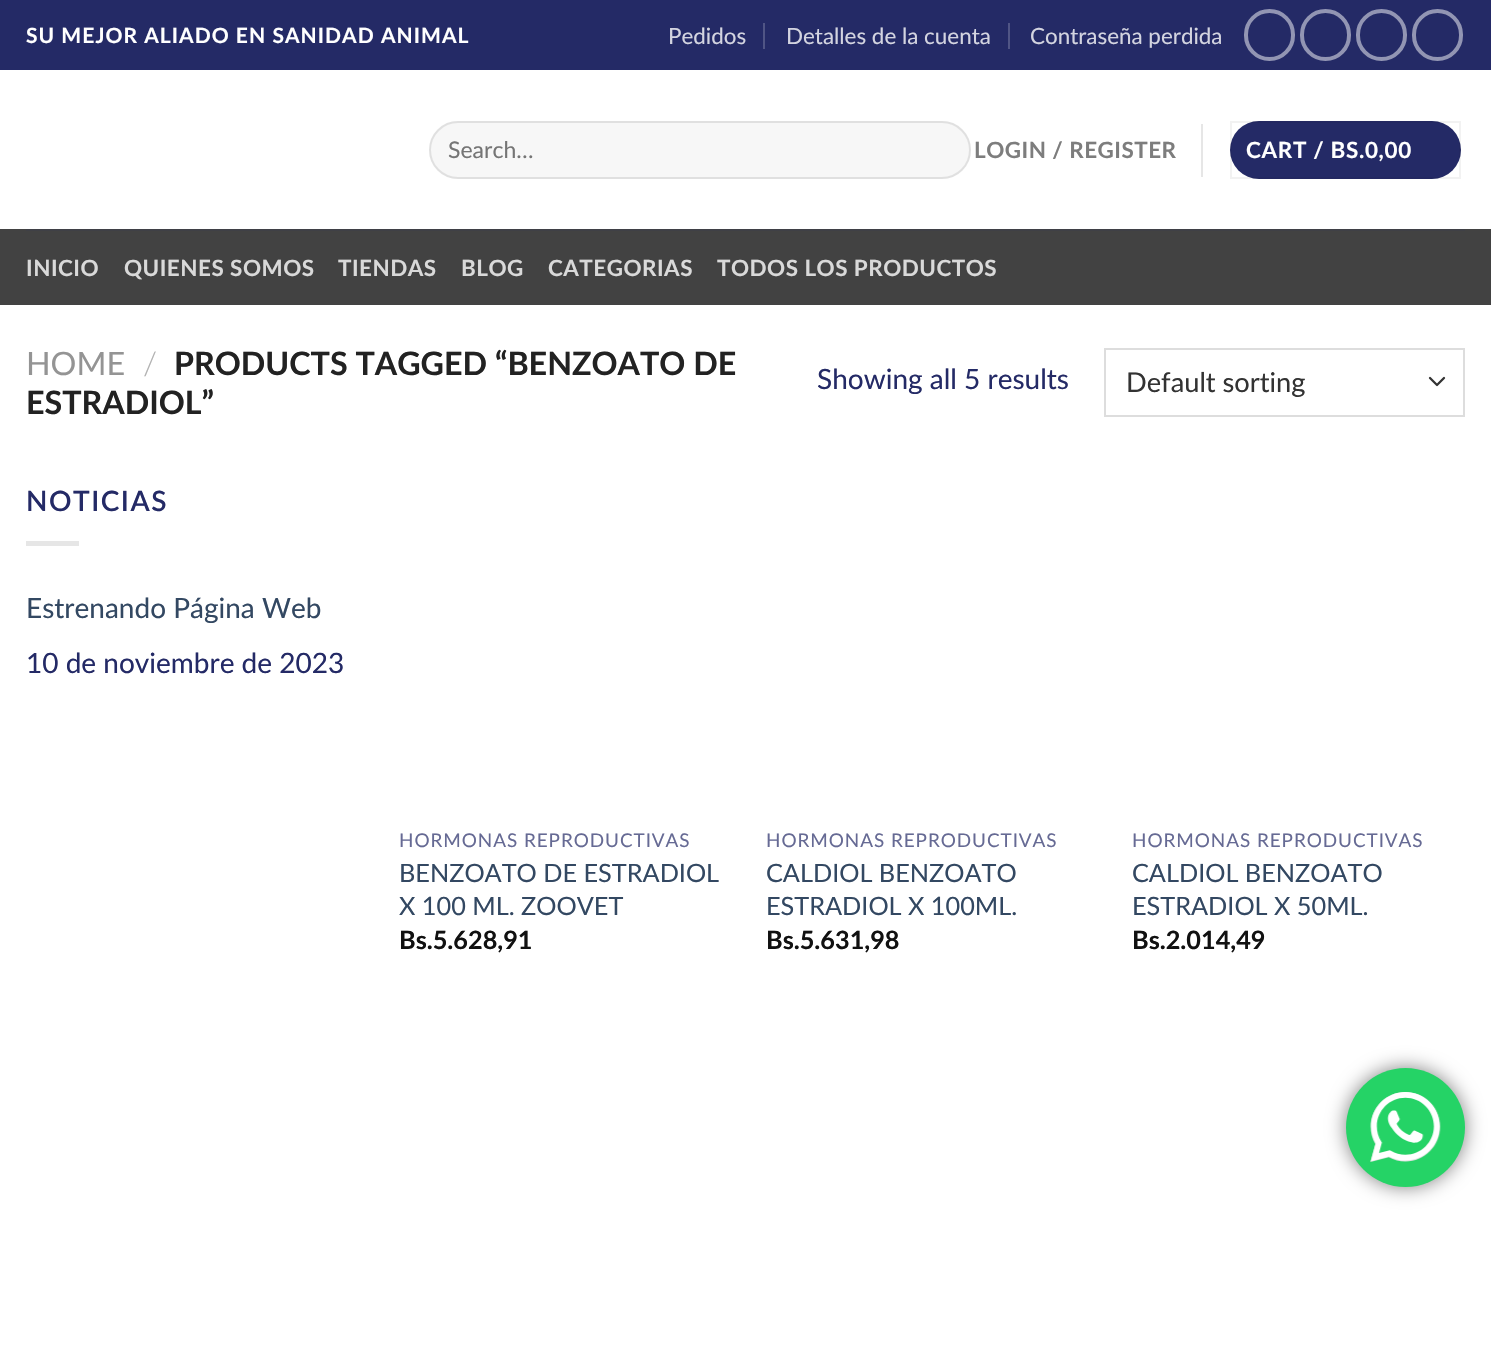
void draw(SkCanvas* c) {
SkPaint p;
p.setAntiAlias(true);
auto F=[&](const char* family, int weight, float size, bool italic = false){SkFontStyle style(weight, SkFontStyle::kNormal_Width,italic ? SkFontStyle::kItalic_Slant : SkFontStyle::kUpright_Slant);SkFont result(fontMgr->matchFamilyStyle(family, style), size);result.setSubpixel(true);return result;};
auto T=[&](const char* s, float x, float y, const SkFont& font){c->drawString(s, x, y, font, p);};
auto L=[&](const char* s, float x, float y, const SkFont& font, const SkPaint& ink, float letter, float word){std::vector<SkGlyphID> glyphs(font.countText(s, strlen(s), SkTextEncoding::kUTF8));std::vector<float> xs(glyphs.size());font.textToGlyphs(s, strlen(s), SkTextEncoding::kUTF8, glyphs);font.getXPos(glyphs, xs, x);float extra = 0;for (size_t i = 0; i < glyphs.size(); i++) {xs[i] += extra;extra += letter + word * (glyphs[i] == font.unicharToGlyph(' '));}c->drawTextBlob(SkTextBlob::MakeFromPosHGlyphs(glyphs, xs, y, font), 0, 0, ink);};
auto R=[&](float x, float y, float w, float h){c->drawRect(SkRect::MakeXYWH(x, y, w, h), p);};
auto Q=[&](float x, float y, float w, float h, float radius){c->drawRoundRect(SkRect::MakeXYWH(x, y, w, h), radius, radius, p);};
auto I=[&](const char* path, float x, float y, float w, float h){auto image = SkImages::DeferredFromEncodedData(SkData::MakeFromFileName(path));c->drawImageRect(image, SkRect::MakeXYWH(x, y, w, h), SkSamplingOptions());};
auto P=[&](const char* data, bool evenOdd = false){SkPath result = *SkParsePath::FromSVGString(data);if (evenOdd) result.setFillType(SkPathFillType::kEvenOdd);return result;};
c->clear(0xffffffff);
p.setColor(0xff242a66);
R(0,0,1491,70);
auto f1 = F("Lato",700,21);
p.setColor(0xffffffff);
L("SU MEJOR ALIADO EN SANIDAD ANIMAL",26,43,f1,p,1.05,0);
auto f2 = F("Lato",400,22.4);
p.setColor(0xffd3d4e0);
T("Pedidos",668,44,f2);
p.setColor(0xff505585);
R(763,23,2,26);
p.setColor(0xffd3d4e0);
T("Detalles de la cuenta",786,44,f2);
p.setColor(0xff505585);
R(1008,23,2,26);
p.setColor(0xffd3d4e0);
T("Contraseña perdida",1030,44,f2);
p.setStroke(true);
p.setStrokeWidth(4);
p.setColor(0xff9295b3);
c->drawRoundRect(SkRect::MakeXYWH(1246,11,47,48),23.5,23.5,p);
c->drawRoundRect(SkRect::MakeXYWH(1302,11,47,48),23.5,23.5,p);
c->drawRoundRect(SkRect::MakeXYWH(1358,11,47,48),23.5,23.5,p);
c->drawRoundRect(SkRect::MakeXYWH(1414,11,47,48),23.5,23.5,p);
p.setStroke(false);
p.setColor(0xfff7f7f7);
Q(429,121,542,58,29);
p.setStroke(true);
p.setStrokeWidth(2);
p.setColor(0x17000000);
c->drawRoundRect(SkRect::MakeXYWH(430,122,540,56),28,28,p);
auto f3 = F("Lato",400,23);
p.setStroke(false);
p.setColor(0xff757575);
T("Search…",448,158,f3);
auto f4 = F("Lato",700,22.4);
p.setColor(0xff7d7d7d);
L("LOGIN / REGISTER",974,158,f4,p,.5,0);
p.setColor(0xffe6e6e6);
R(1201,124,2,53);
p.setColor(0xff242a66);
Q(1230,121,231,58,29);
p.setStroke(true);
p.setColor(0x0d000000);
c->drawRect(SkRect::MakeXYWH(1231,122,229,56),p);
p.setStroke(false);
p.setColor(0xffffffff);
L("CART / BS.0,00",1246,158,f4,p,.7,0);
p.setColor(0xff424242);
R(0,229,1491,76);
p.setColor(0xff3f4046);
R(26,229,1439,2);
p.setColor(0xffd9d9d9);
L("INICIO",26,276,f4,p,.5,0);
L("QUIENES SOMOS",124,276,f4,p,.5,0);
L("TIENDAS",338,276,f4,p,.5,0);
L("BLOG",461,276,f4,p,.5,0);
L("CATEGORIAS",548,276,f4,p,.5,0);
L("TODOS LOS PRODUCTOS",717,276,f4,p,.5,0);
auto f5 = F("Lato",400,32.25);
p.setColor(0xff949494);
T("HOME",26,375,f5);
auto f6 = F("Lato",300,32.25);
p.setColor(0xffb2b2b2);
T("/",143,375,f6);
auto f7 = F("Lato",700,32.25);
p.setColor(0xff222222);
T("PRODUCTS TAGGED “BENZOATO DE",174,375,f7);
T("ESTRADIOL”",26,414,f7);
auto f8 = F("Lato",400,28);
p.setColor(0xff242a66);
T("Showing all 5 results",817,389,f8);
p.setStroke(true);
p.setStrokeWidth(2.3);
p.setStrokeCap(SkPaint::kRound_Cap);
p.setStrokeJoin(SkPaint::kRound_Join);
p.setColor(0xff333333);
c->drawPath(P("M1430 378l7 7l7-7"),p);
p.setStrokeWidth(2);
p.setStrokeCap(SkPaint::kButt_Cap);
p.setStrokeJoin(SkPaint::kMiter_Join);
p.setColor(0xffdddddd);
c->drawRect(SkRect::MakeXYWH(1105,349,359,67),p);
auto f9 = F("Lato",400,27.25);
p.setStroke(false);
p.setColor(0xff333333);
T("Default sorting",1126,392,f9);
auto f10 = F("Lato",600,28);
p.setColor(0xff242a66);
L("NOTICIAS",26,511,f10,p,1.5,0);
p.setColor(0xffe6e6e6);
R(26,541,53,5);
p.setColor(0xff334862);
T("Estrenando Página Web",26,618,f8);
p.setColor(0xff242a66);
T("10 de noviembre de 2023",26,673,f8);
auto f11 = F("Lato",400,18.9);
p.setColor(0xff666a94);
L("HORMONAS REPRODUCTIVAS",399,847,f11,p,.95,0);
auto f12 = F("Lato",400,25.25);
p.setColor(0xff334862);
T("BENZOATO DE ESTRADIOL",399,882,f12);
T("X 100 ML. ZOOVET",399,915,f12);
auto f13 = F("Lato",700,25.25);
p.setColor(0xff111111);
T("Bs.5.628,91",399,949,f13);
p.setColor(0xff666a94);
L("HORMONAS REPRODUCTIVAS",766,847,f11,p,.95,0);
p.setColor(0xff334862);
T("CALDIOL BENZOATO",766,882,f12);
T("ESTRADIOL X 100ML.",766,915,f12);
p.setColor(0xff111111);
T("Bs.5.631,98",766,949,f13);
p.setColor(0xff666a94);
L("HORMONAS REPRODUCTIVAS",1132,847,f11,p,.95,0);
p.setColor(0xff334862);
T("CALDIOL BENZOATO",1132,882,f12);
T("ESTRADIOL X 50ML.",1132,915,f12);
p.setColor(0xff111111);
T("Bs.2.014,49",1132,949,f13);
p.setColor(0x80000000);
p.setMaskFilter(SkMaskFilter::MakeBlur(kNormal_SkBlurStyle, 9.5));
c->drawRoundRect(SkRect::MakeXYWH(1346,1068,119,119),59.5,59.5,p);
p.setMaskFilter(nullptr);
p.setColor(0xff25d366);
c->drawCircle(1405.5,1127.5,59.5,p);
I("1.png",1370,1092,71,70);
}
